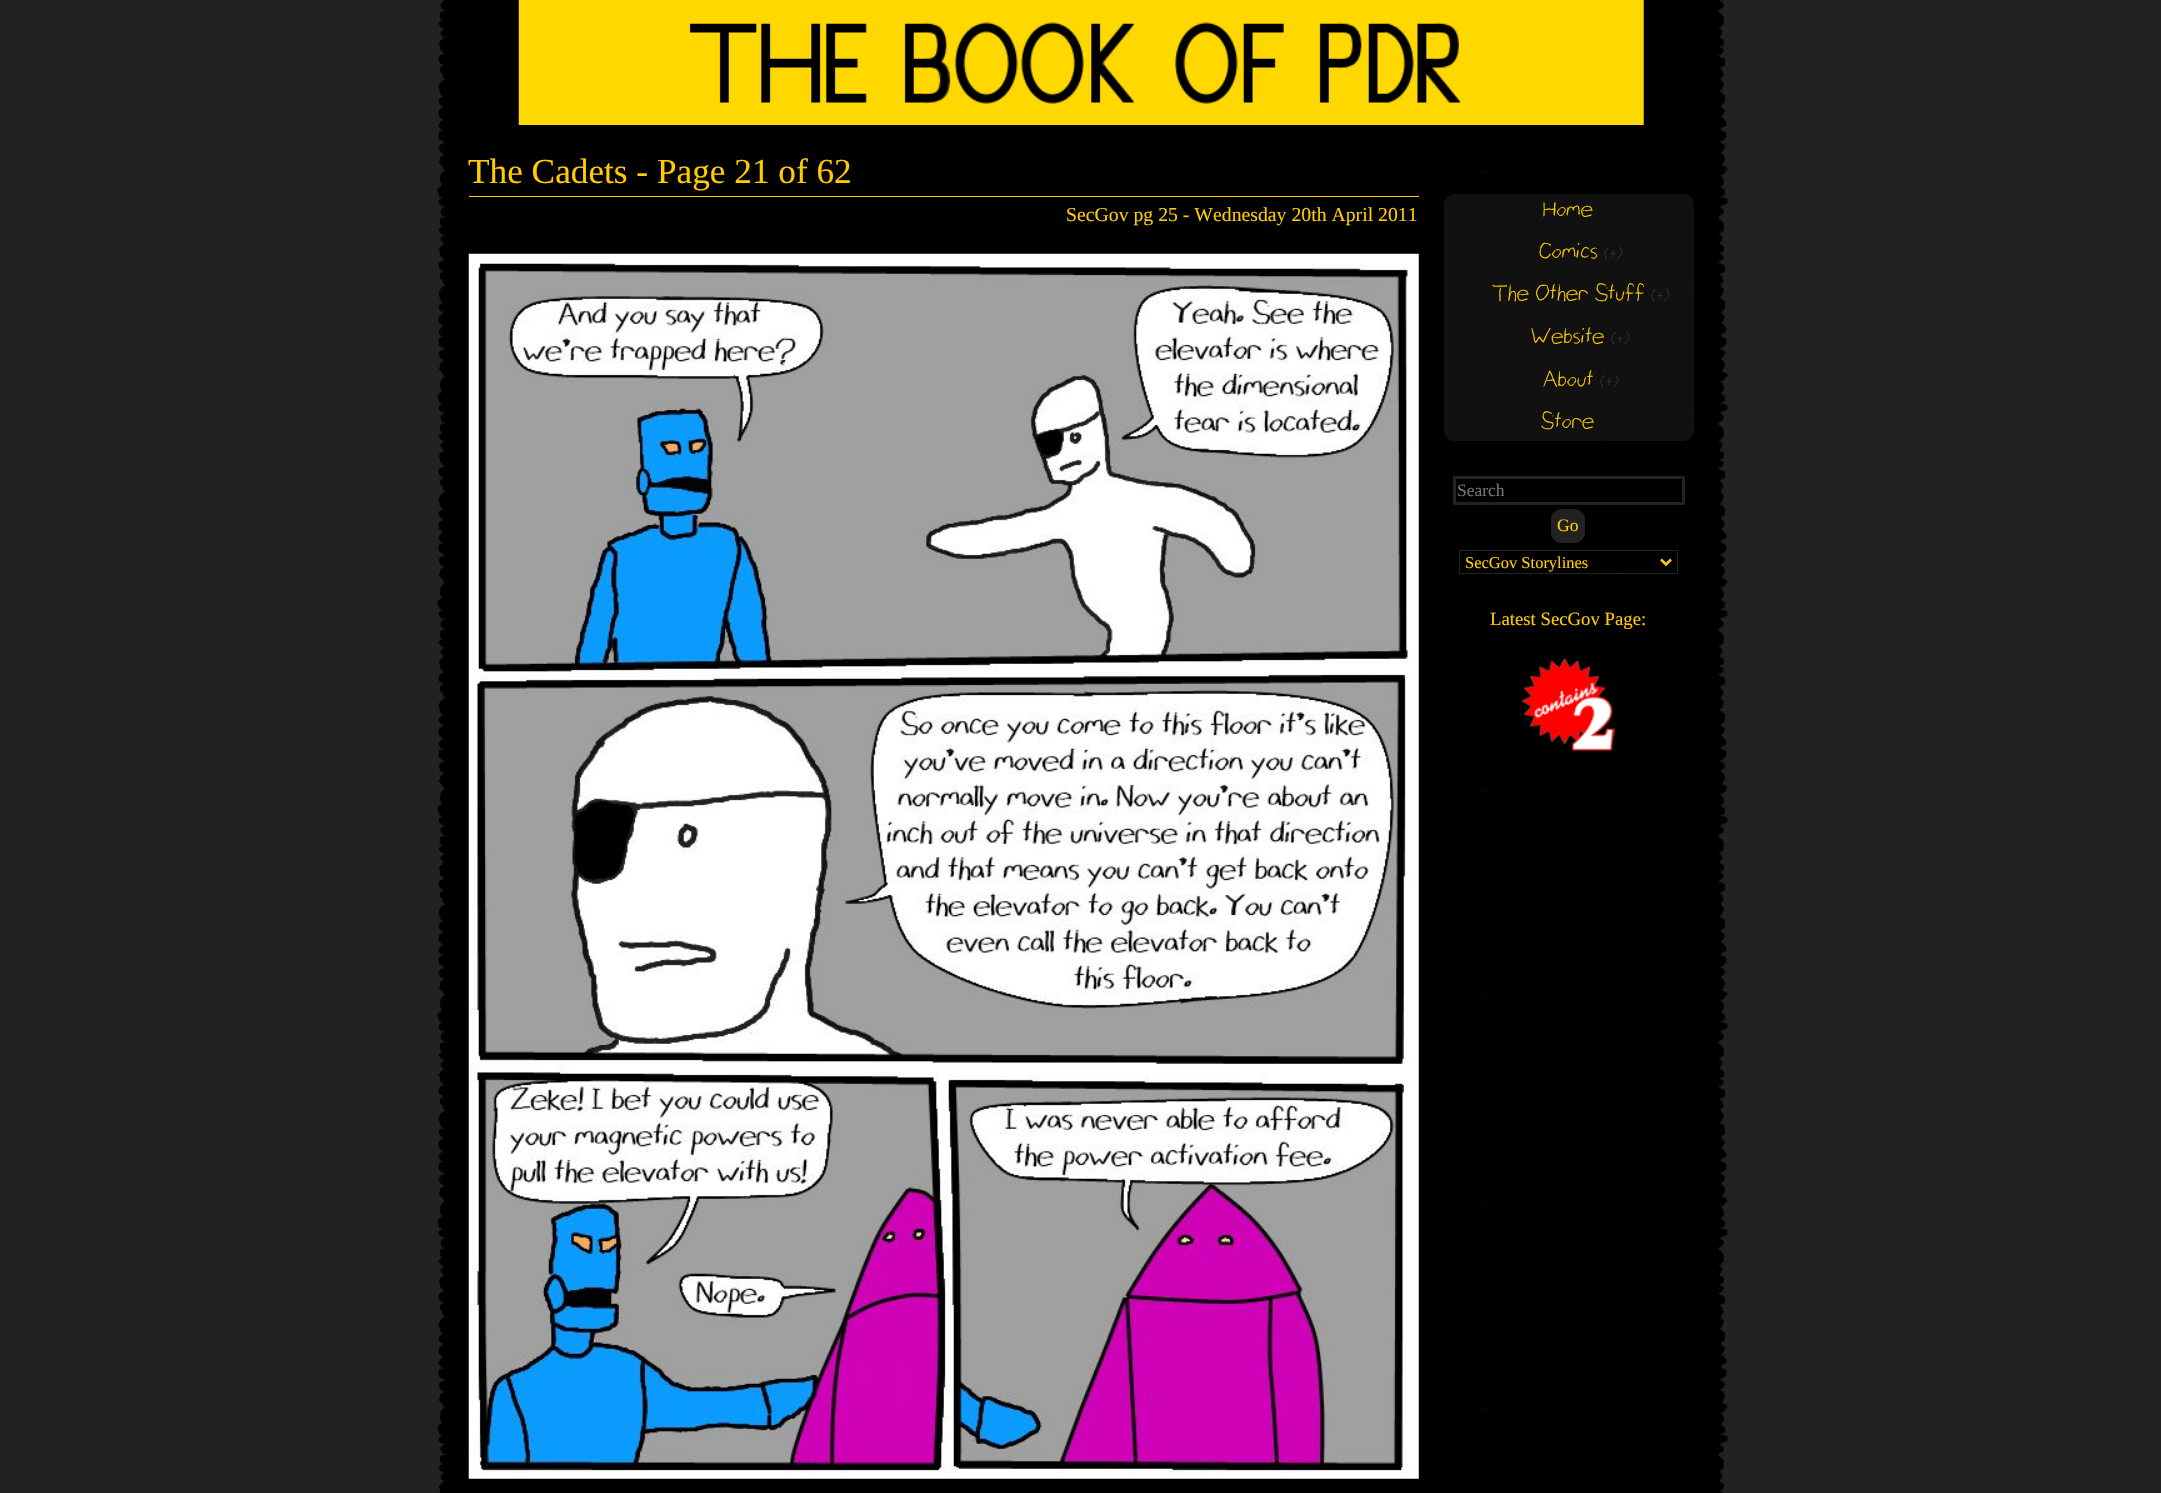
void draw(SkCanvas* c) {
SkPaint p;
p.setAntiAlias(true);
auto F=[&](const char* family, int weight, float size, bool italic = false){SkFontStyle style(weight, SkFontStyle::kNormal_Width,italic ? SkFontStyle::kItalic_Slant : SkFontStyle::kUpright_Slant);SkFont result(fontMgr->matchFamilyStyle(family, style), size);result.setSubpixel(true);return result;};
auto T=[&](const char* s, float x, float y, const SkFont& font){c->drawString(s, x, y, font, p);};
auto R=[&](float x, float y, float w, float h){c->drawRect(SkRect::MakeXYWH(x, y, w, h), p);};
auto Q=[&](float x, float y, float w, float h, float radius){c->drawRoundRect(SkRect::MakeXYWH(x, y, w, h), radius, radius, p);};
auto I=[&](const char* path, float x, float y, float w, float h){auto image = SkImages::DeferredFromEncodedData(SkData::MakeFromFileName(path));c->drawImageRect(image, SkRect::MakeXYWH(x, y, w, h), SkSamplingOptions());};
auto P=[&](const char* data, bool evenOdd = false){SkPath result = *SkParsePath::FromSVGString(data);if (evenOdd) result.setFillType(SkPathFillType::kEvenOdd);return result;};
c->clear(0xff222222);
I("1.png",437,0,1299,1493);
I("2.png",518,0,1126,125);
p.setColor(0xffffcc00);
R(469,196,950,1);
auto f1 = F("Liberation Serif",400,35.25);
T("The Cadets - Page 21 of 62",468,183,f1);
auto f2 = F("Liberation Serif",400,19.75);
T("SecGov pg 25 - Wednesday 20th April 2011",1066,221,f2);
I("3.png",468,253,951,1226);
p.setColor(0xff111111);
Q(1444,194,250,247,11);
auto f3 = F("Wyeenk",400,17.5);
p.setColor(0xffffcc00);
T("Home",1543,216,f3);
T("Comics",1539,258,f3);
auto f4 = F("Wyeenk",400,12);
p.setColor(0xff333333);
T("(+)",1604,258,f4);
p.setColor(0xffffcc00);
T("The Other Stuff",1492,300,f3);
p.setColor(0xff333333);
T("(+)",1651,300,f4);
p.setColor(0xffffcc00);
T("Website",1531,343,f3);
p.setColor(0xff333333);
T("(+)",1611,343,f4);
p.setColor(0xffffcc00);
T("About",1543,386,f3);
p.setColor(0xff333333);
T("(+)",1600,386,f4);
p.setColor(0xffffcc00);
T("Store",1541,428,f3);
p.setStroke(true);
p.setStrokeWidth(3);
p.setColor(0xff222222);
c->drawRect(SkRect::MakeXYWH(1454.5,477.5,229,26),p);
auto f5 = F("Liberation Serif",400,17.5);
p.setStroke(false);
p.setColor(0xff757575);
T("Search",1457,496,f5);
p.setColor(0xff222222);
Q(1551,509,34,34,11);
p.setColor(0xffffcc00);
T("Go",1557,531,f5);
p.setColor(0xff000000);
R(1542,570,2,1);
p.setStroke(true);
p.setStrokeWidth(1);
p.setColor(0xff222222);
c->drawRect(SkRect::MakeXYWH(1459.5,550.5,218,23),p);
p.setStrokeWidth(2.5);
p.setColor(0xffffcc00);
c->drawPath(P("M1661 559.5l5 5l5-5"),p);
auto f6 = F("Liberation Serif",400,16.5);
p.setStroke(false);
T("SecGov Storylines",1465,568,f6);
auto f7 = F("Liberation Serif",400,18.75);
T("Latest SecGov Page:",1490,625,f7);
I("4.png",1521,658,94,94);
}
